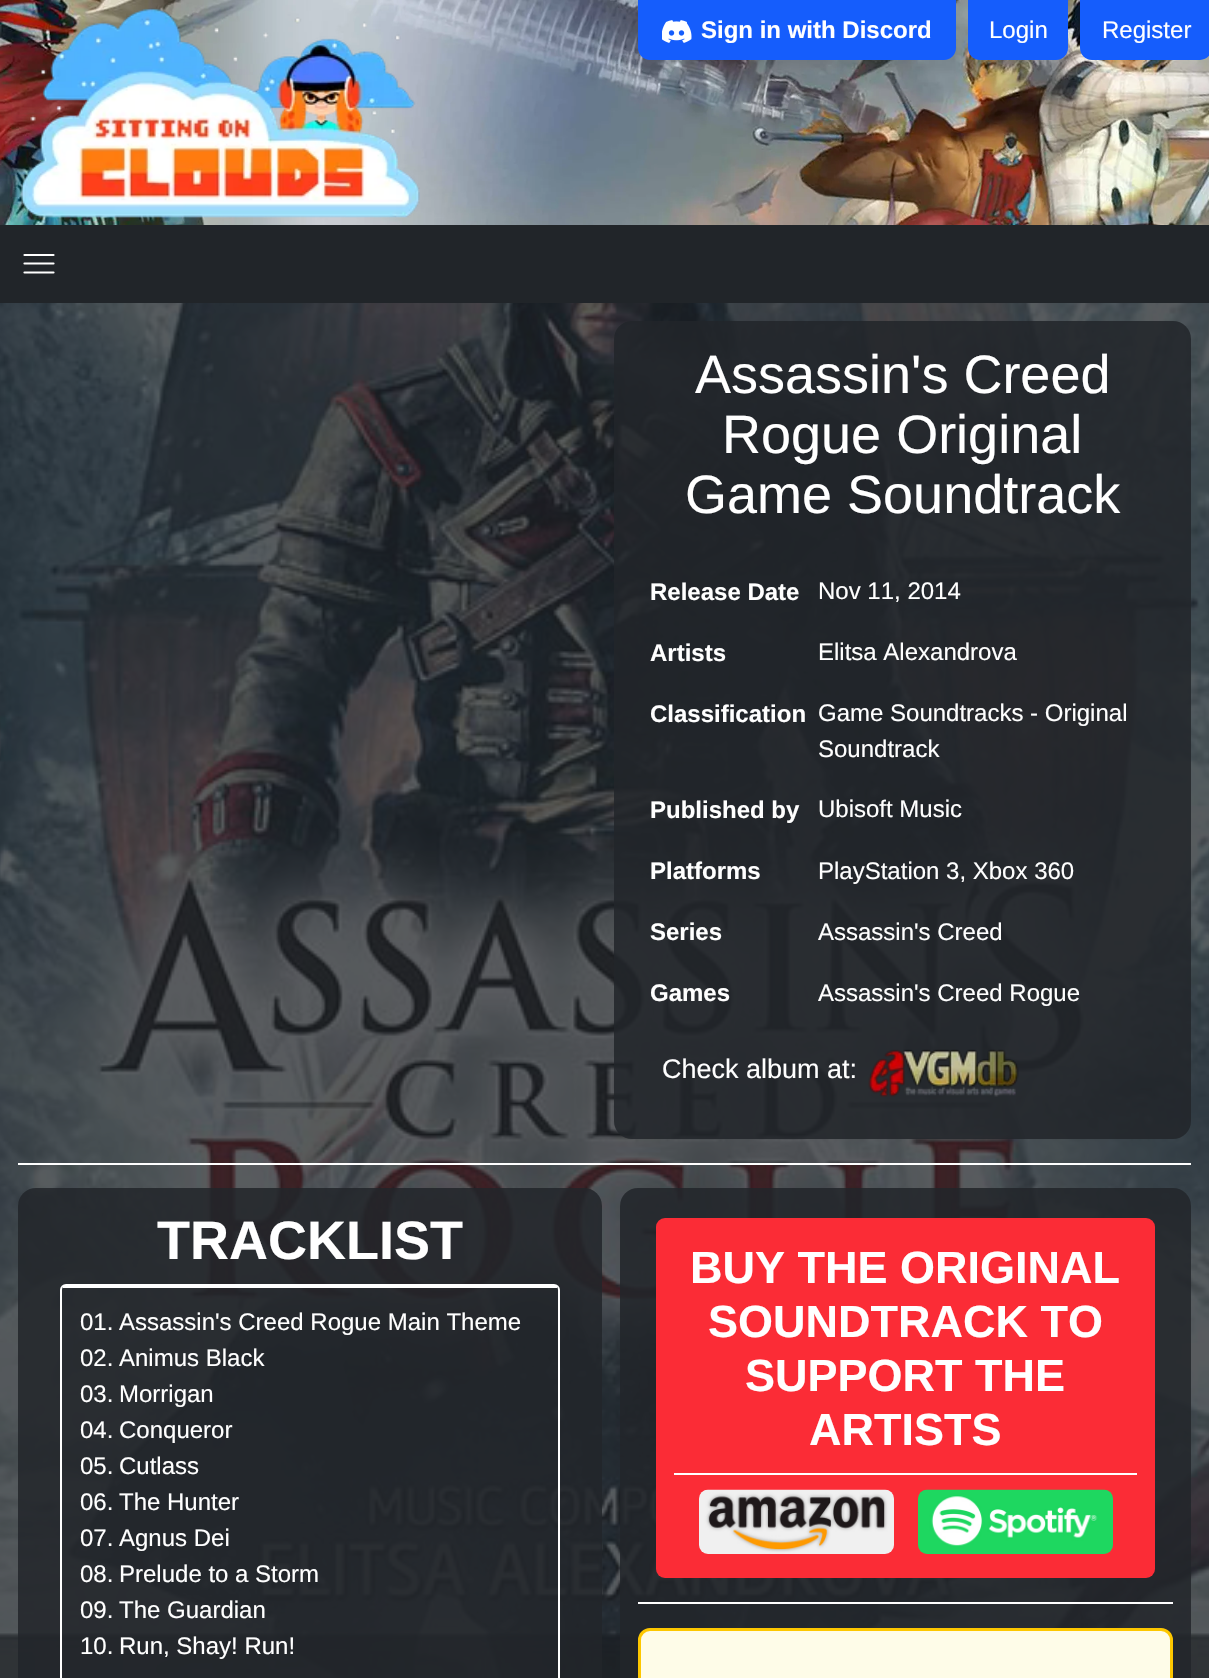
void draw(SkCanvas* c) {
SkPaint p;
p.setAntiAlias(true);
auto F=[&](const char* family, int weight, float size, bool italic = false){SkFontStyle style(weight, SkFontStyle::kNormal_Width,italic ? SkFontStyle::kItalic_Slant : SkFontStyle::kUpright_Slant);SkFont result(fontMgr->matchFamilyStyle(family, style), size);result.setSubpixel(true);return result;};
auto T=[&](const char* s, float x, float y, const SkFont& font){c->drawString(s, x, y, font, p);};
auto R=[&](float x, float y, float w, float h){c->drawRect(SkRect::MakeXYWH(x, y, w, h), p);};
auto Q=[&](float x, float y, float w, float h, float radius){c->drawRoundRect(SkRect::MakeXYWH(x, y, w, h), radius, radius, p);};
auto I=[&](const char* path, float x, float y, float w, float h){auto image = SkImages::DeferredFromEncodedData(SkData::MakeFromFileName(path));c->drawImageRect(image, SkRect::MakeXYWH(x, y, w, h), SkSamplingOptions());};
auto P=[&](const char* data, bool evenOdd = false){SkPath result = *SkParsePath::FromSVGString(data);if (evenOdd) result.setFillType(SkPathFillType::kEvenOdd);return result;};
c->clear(0xffffffff);
I("1.png",0,0,1209,225);
I("2.png",21,8,399,210);
p.setColor(0xff155dfc);
c->drawPath(P("M638 0h318v48c0 6.5-5.5 12-12 12h-294c-6.5 0-12-5.5-12-12z"),p);
I("3.png",662,20,30,23);
auto f1 = F("Liberation Sans",700,24);
p.setColor(0xffffffff);
T("Sign in with Discord",701,38,f1);
p.setColor(0xff155dfc);
c->drawPath(P("M968 0h100v48c0 6.5-5.5 12-12 12h-76c-6.5 0-12-5.5-12-12z"),p);
auto f2 = F("Liberation Sans",400,24);
p.setColor(0xffffffff);
T("Login",989,38,f2);
p.setColor(0xff155dfc);
c->drawPath(P("M1080 0h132v48c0 6.5-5.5 12-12 12h-108c-6.5 0-12-5.5-12-12z"),p);
p.setColor(0xffffffff);
T("Register",1102,38,f2);
p.setColor(0xff212529);
R(0,225,1209,78);
p.setStroke(true);
p.setStrokeWidth(2.2);
p.setStrokeCap(SkPaint::kRound_Cap);
p.setStrokeJoin(SkPaint::kRound_Join);
p.setColor(0xffffffff);
c->drawPath(P("M24.5 263.5h29m-29 9h29m-29-17.5h29"),p);
I("4.png",0,303,1209,1375);
p.setStroke(false);
p.setColor(0xd9212529);
Q(614,321,577,818,18);
auto f3 = F("Liberation Sans",400,54);
p.setColor(0xffffffff);
T("Assassin's Creed",695,393,f3);
T("Rogue Original",722,453,f3);
T("Game Soundtrack",685,513,f3);
T("Release Date",650,600,f1);
T("Nov 11, 2014",818,599,f2);
T("Artists",650,661,f1);
T("Elitsa Alexandrova",818,660,f2);
T("Classification",650,722,f1);
T("Game Soundtracks - Original",818,721,f2);
T("Soundtrack",818,757,f2);
T("Published by",650,818,f1);
T("Ubisoft Music",818,817,f2);
T("Platforms",650,879,f1);
T("PlayStation 3, Xbox 360",818,879,f2);
T("Series",650,940,f1);
T("Assassin's Creed",818,940,f2);
T("Games",650,1001,f1);
T("Assassin's Creed Rogue",818,1001,f2);
auto f4 = F("Liberation Sans",400,27);
T("Check album at:",662,1078,f4);
I("5.png",868,1049,151,48);
R(18,1163,1173,2);
p.setColor(0xd9212529);
Q(18,1188,584,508,18);
auto f5 = F("Liberation Sans",700,54);
p.setColor(0xffffffff);
T("TRACKLIST",157,1259,f5);
p.setStroke(true);
p.setStrokeWidth(2);
p.setStrokeCap(SkPaint::kButt_Cap);
p.setStrokeJoin(SkPaint::kMiter_Join);
c->drawRoundRect(SkRect::MakeXYWH(61,1285,498,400),5,5,p);
p.setStroke(false);
R(63,1286,494,2);
T("01.",80,1330,f2);
T("Assassin's Creed Rogue Main Theme",119,1330,f2);
T("02.",80,1366,f2);
T("Animus Black",119,1366,f2);
T("03.",80,1402,f2);
T("Morrigan",119,1402,f2);
T("04.",80,1438,f2);
T("Conqueror",119,1438,f2);
T("05.",80,1474,f2);
T("Cutlass",119,1474,f2);
T("06.",80,1510,f2);
T("The Hunter",119,1510,f2);
T("07.",80,1546,f2);
T("Agnus Dei",119,1546,f2);
T("08.",80,1582,f2);
T("Prelude to a Storm",119,1582,f2);
T("09.",80,1618,f2);
T("The Guardian",119,1618,f2);
T("10.",80,1654,f2);
T("Run, Shay! Run!",119,1654,f2);
p.setColor(0xd9212529);
Q(620,1188,571,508,18);
p.setColor(0xfffb2c36);
Q(656,1218,499,360,9);
auto f6 = F("Liberation Sans",700,45);
p.setColor(0xffffffff);
T("BUY THE ORIGINAL",690,1283,f6);
T("SOUNDTRACK TO",708,1337,f6);
T("SUPPORT THE",745,1391,f6);
T("ARTISTS",809,1445,f6);
R(674,1473,463,2);
I("6.png",699,1489,195,65);
I("7.png",918,1489,195,65);
R(638,1602,535,2);
p.setColor(0xfffefce8);
c->drawRoundRect(SkRect::MakeXYWH(639.5,1629.5,532,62),10.5,10.5,p);
p.setStroke(true);
p.setStrokeWidth(3);
p.setColor(0xfffdc700);
c->drawRoundRect(SkRect::MakeXYWH(639.5,1629.5,532,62),10.5,10.5,p);
}
